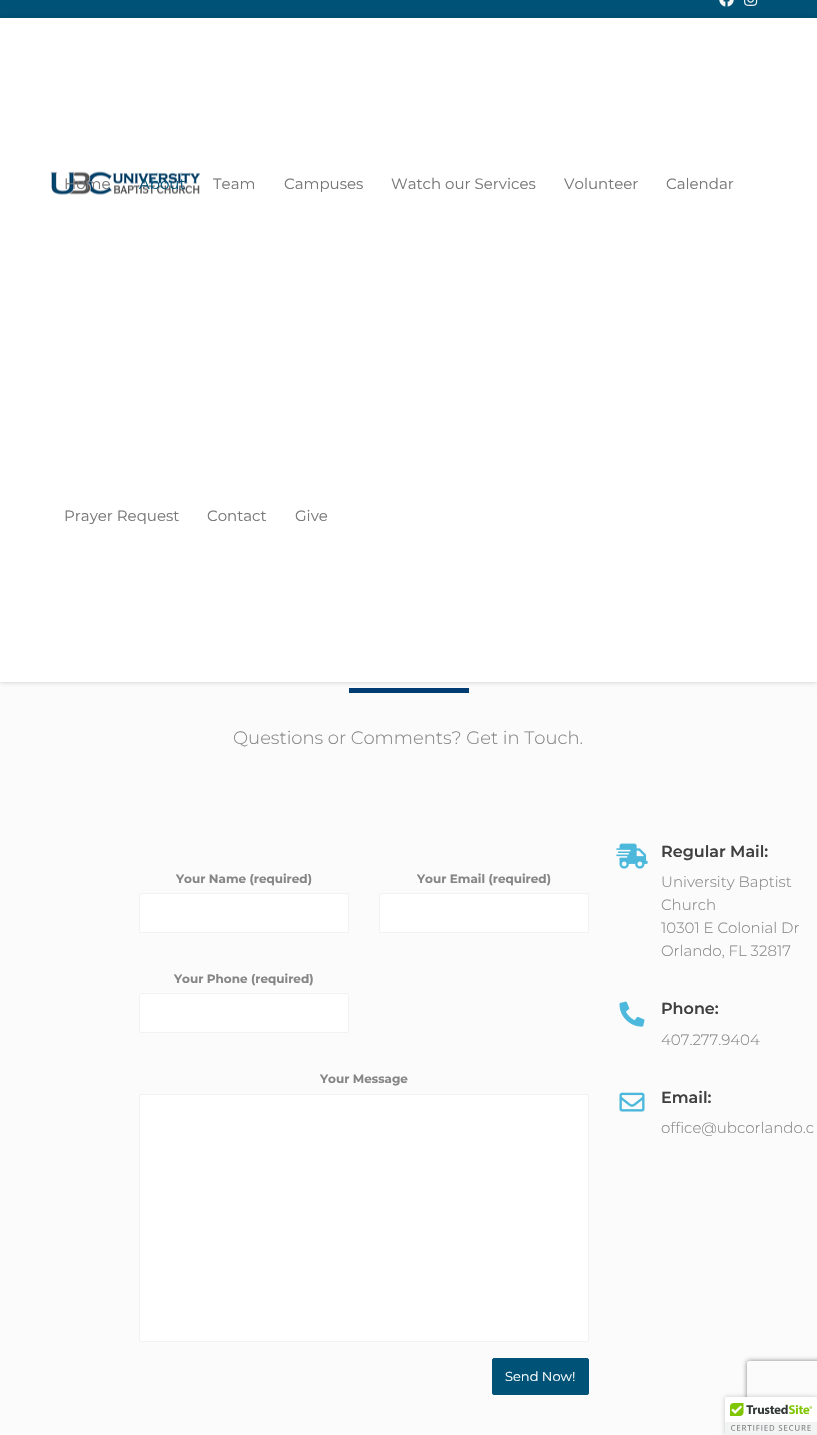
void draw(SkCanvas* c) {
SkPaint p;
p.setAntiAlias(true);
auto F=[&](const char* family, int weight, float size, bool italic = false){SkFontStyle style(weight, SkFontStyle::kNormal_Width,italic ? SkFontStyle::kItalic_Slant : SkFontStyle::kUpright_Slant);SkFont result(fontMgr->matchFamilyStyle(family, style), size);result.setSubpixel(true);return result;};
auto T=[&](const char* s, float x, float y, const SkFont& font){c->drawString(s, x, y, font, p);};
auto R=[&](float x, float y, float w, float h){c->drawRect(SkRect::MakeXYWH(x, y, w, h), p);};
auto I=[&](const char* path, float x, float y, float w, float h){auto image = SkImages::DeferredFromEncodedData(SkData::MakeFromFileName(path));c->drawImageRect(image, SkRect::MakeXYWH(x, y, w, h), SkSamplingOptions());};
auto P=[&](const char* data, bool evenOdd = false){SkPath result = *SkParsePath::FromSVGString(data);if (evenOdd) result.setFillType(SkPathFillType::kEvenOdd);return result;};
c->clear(0xfffbfbfb);
p.setColor(0xff005377);
R(0,0,817,18);
I("1.png",719,0,15,7);
I("2.png",744,0,14,6);
p.setColor(0xff003c71);
R(349,688,120,5);
p.setColor(0x30000000);
p.setMaskFilter(SkMaskFilter::MakeBlur(kNormal_SkBlurStyle, 2.5));
c->drawRect(SkRect::MakeXYWH(0,18,817,664),p);
p.setMaskFilter(nullptr);
p.setColor(0xffffffff);
R(0,18,817,664);
I("3.png",50,171,150,24);
auto f1 = F("Montserrat",400,15);
p.setColor(0xff777777);
T("Home",64,189,f1);
p.setColor(0xff005377);
T("About",139,189,f1);
p.setColor(0xff777777);
T("Team",213,189,f1);
T("Campuses",284,189,f1);
T("Watch our Services",391,189,f1);
T("Volunteer",564,189,f1);
T("Calendar",666,189,f1);
T("Prayer Request",64,521,f1);
T("Contact",207,521,f1);
T("Give",295,521,f1);
auto f2 = F("Montserrat",300,18);
p.setColor(0xff868686);
T("Questions or Comments? Get in Touch.",233,744,f2);
auto f3 = F("Montserrat",700,12);
T("Your Name (required)",176,883,f3);
p.setColor(0xffffffff);
c->drawRoundRect(SkRect::MakeXYWH(139.5,893.5,209,39),1.5,1.5,p);
p.setStroke(true);
p.setStrokeWidth(1);
p.setColor(0xfff2f2f2);
c->drawRoundRect(SkRect::MakeXYWH(139.5,893.5,209,39),1.5,1.5,p);
p.setStroke(false);
p.setColor(0xff868686);
T("Your Email (required)",417,883,f3);
p.setColor(0xffffffff);
c->drawRoundRect(SkRect::MakeXYWH(379.5,893.5,209,39),1.5,1.5,p);
p.setStroke(true);
p.setColor(0xfff2f2f2);
c->drawRoundRect(SkRect::MakeXYWH(379.5,893.5,209,39),1.5,1.5,p);
p.setStroke(false);
p.setColor(0xff868686);
T("Your Phone (required)",174,983,f3);
p.setColor(0xffffffff);
c->drawRoundRect(SkRect::MakeXYWH(139.5,993.5,209,39),1.5,1.5,p);
p.setStroke(true);
p.setColor(0xfff2f2f2);
c->drawRoundRect(SkRect::MakeXYWH(139.5,993.5,209,39),1.5,1.5,p);
p.setStroke(false);
p.setColor(0xff868686);
T("Your Message",320,1083,f3);
p.setColor(0xffffffff);
c->drawRoundRect(SkRect::MakeXYWH(139.5,1094.5,449,247),1.5,1.5,p);
p.setStroke(true);
p.setColor(0xfff2f2f2);
c->drawRoundRect(SkRect::MakeXYWH(139.5,1094.5,449,247),1.5,1.5,p);
p.setStroke(false);
p.setColor(0xff005377);
c->drawRoundRect(SkRect::MakeXYWH(492.5,1358.5,96,36),1.5,1.5,p);
p.setStroke(true);
c->drawRoundRect(SkRect::MakeXYWH(492.5,1358.5,96,36),1.5,1.5,p);
auto f4 = F("Montserrat",400,13);
p.setStroke(false);
p.setColor(0xffffffff);
T("Send Now!",505,1381,f4);
I("4.png",616,843,32,26);
auto f5 = F("Montserrat",600,16);
p.setColor(0xff404040);
T("Regular Mail:",661,857,f5);
auto f6 = F("Montserrat",300,15);
p.setColor(0xff868686);
T("University Baptist",661,887,f6);
T("Church",661,910,f6);
T("10301 E Colonial Dr",661,933,f6);
T("Orlando, FL 32817",661,956,f6);
I("5.png",619,1001,26,26);
p.setColor(0xff404040);
T("Phone:",661,1014,f5);
p.setColor(0xff868686);
T("407.277.9404",661,1045,f6);
I("6.png",619,1092,26,20);
p.setColor(0xff404040);
T("Email:",661,1103,f5);
p.setColor(0xff868686);
T("office@ubcorlando.c",661,1133,f6);
c->save();
c->clipPath(P("M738 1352h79v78h-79zm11 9h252c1 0 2 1 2 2v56c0 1-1 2-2 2h-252c-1 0-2-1-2-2v-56c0-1 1-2 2-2z",true),true);
p.setColor(0xff808080);
p.setMaskFilter(SkMaskFilter::MakeBlur(kNormal_SkBlurStyle, 2.5));
c->drawRoundRect(SkRect::MakeXYWH(747,1361,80,60),2,2,p);
p.setMaskFilter(nullptr);
c->restore();
p.setColor(0x33000000);
p.setMaskFilter(SkMaskFilter::MakeBlur(kNormal_SkBlurStyle, 2.5));
c->drawRoundRect(SkRect::MakeXYWH(725,1397,92,38),2,2,p);
p.setMaskFilter(nullptr);
p.setColor(0xffffffff);
c->drawPath(P("M727 1397h90v38h-92v-36c0-1 1-2 2-2z"),p);
I("7.png",725,1397,92,38);
}
